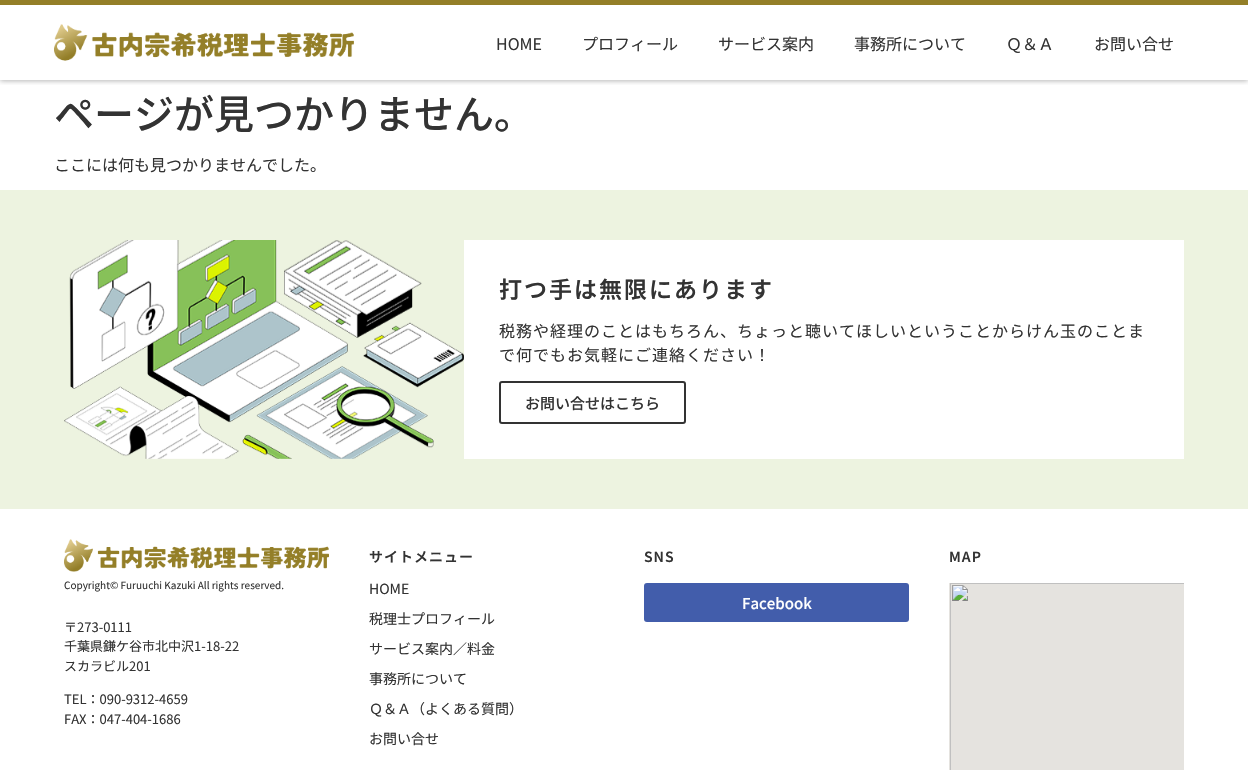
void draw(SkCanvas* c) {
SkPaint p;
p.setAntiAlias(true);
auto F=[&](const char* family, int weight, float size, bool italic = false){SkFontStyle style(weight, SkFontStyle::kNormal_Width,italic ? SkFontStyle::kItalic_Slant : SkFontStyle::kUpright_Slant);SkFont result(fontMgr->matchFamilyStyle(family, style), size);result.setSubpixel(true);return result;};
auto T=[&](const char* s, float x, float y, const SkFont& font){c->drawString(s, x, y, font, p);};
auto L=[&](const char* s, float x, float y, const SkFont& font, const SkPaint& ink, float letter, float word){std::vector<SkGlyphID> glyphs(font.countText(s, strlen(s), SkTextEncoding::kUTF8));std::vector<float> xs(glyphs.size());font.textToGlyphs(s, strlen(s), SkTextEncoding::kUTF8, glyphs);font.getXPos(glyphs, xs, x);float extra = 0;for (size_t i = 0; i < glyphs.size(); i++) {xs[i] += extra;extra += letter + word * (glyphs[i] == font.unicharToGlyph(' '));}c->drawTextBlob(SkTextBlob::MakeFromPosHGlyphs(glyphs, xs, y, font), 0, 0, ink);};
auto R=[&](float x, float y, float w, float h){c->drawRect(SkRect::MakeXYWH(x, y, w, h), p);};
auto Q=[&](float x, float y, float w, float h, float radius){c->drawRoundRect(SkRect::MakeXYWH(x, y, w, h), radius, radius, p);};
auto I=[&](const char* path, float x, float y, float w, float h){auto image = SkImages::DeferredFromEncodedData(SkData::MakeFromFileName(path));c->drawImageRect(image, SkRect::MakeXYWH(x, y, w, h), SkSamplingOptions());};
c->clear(0xffffffff);
c->save();
c->clipRect(SkRect::MakeXYWH(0,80,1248,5));
p.setColor(0x806b6b6b);
p.setMaskFilter(SkMaskFilter::MakeBlur(kNormal_SkBlurStyle, 2.5));
c->drawRect(SkRect::MakeXYWH(0,1,1248,80),p);
p.setMaskFilter(nullptr);
c->restore();
p.setColor(0xff947f28);
R(0,0,1248,5);
I("1.png",54,24,300,37);
auto f1 = F("Noto Sans JP",400,16);
p.setColor(0xff333333);
T("HOME",496,50,f1);
T("プロフィール",582,50,f1);
T("サービス案内",718,50,f1);
T("事務所について",854,50,f1);
T("Ｑ＆Ａ",1006,50,f1);
T("お問い合せ",1094,50,f1);
auto f2 = F("Noto Sans JP",500,40);
T("ページが見つかりません。",54,129,f2);
T("ここには何も見つかりませんでした。",54,171,f1);
p.setColor(0xffedf3e0);
R(0,190,1248,319);
I("2.png",64,240,400,219);
p.setColor(0xffffffff);
R(464,240,720,219);
auto f3 = F("Noto Sans JP",600,23);
p.setColor(0xff333333);
L("打つ手は無限にあります",499,298,f3,p,2,0);
L("税務や経理のことはもちろん、ちょっと聴いてほしいということからけん玉のことま",499,337,f1,p,1,0);
L("で何でもお気軽にご連絡ください！",499,361,f1,p,1,0);
p.setStroke(true);
p.setStrokeWidth(2);
c->drawRoundRect(SkRect::MakeXYWH(500,382,185,41),2,2,p);
auto f4 = F("Noto Sans JP",500,15);
p.setStroke(false);
T("お問い合せはこちら",525,409,f4);
auto f5 = F("Noto Sans JP",600,14);
L("サイトメニュー",369,562,f5,p,1,0);
auto f6 = F("Noto Sans JP",400,14);
T("HOME",369,594,f6);
T("税理士プロフィール",369,624,f6);
T("サービス案内／料金",369,654,f6);
T("事務所について",369,684,f6);
T("Ｑ＆Ａ（よくある質問）",369,714,f6);
T("お問い合せ",369,744,f6);
L("SNS",644,562,f5,p,1,0);
p.setColor(0xff425dab);
Q(644,583,265,39,3);
p.setColor(0xffffffff);
T("Facebook",742,609,f4);
p.setColor(0xff333333);
L("MAP",949,562,f5,p,1,0);
I("3.png",949,583,235,187);
I("4.png",64,539,265,33);
auto f7 = F("Noto Sans JP",400,10);
T("Copyright© Furuuchi Kazuki All rights reserved.",64,589,f7);
auto f8 = F("Noto Sans JP",400,13);
T("〒273-0111",64,632,f8);
T("千葉県鎌ケ谷市北中沢1-18-22",64,651,f8);
T("スカラビル201",64,671,f8);
T("TEL：090-9312-4659",64,704,f8);
T("FAX：047-404-1686",64,724,f8);
}
